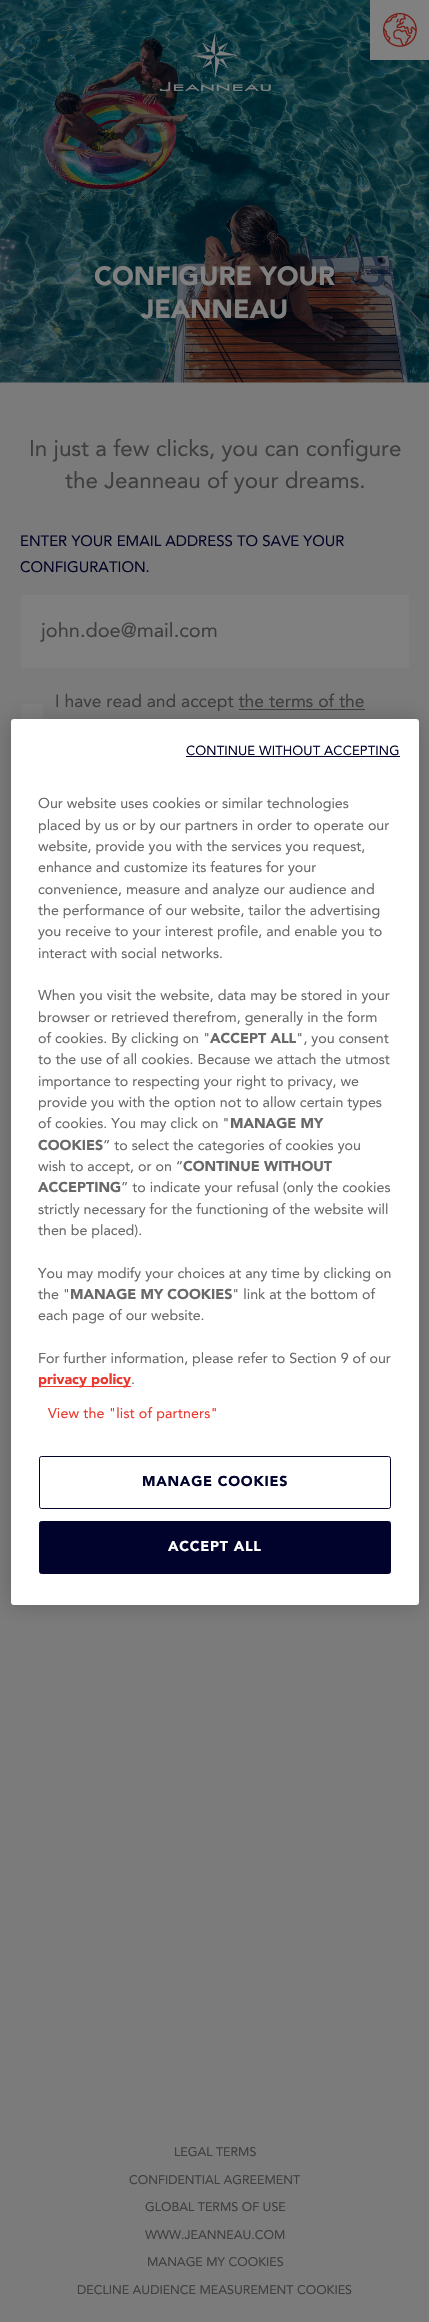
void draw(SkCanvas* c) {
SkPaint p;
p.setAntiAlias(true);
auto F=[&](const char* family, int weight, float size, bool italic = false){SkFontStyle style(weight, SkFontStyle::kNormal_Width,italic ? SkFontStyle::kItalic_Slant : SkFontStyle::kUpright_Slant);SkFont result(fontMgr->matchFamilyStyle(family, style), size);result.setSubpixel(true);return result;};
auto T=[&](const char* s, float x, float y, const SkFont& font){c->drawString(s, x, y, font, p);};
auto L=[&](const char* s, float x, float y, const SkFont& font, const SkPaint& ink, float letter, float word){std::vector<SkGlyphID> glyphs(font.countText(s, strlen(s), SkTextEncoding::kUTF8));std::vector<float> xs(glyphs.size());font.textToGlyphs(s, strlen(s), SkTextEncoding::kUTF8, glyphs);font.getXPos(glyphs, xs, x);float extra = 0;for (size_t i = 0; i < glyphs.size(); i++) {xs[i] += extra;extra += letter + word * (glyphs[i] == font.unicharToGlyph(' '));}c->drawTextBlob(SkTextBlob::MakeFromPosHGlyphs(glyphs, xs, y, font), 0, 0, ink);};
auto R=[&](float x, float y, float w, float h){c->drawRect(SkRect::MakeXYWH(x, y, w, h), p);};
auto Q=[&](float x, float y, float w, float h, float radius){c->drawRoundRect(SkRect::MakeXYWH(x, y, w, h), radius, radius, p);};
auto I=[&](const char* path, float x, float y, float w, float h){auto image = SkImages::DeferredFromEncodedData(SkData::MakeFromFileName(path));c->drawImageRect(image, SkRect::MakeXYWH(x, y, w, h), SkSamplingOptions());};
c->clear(0xff7b7b7b);
I("3.png",0,0,429,383);
I("1.png",159,33,112,59);
p.setColor(0xff808080);
R(370,0,59,60);
I("2.png",383,13,34,34);
auto f1 = F("Avenir",900,26.25);
T("CONFIGURE YOUR",94,285,f1);
T("JEANNEAU",141,318,f1);
auto f2 = F("Avenir",400,22.5);
p.setColor(0xff3e3e3e);
T("In just a few clicks, you can configure",29,456,f2);
T("the Jeanneau of your dreams.",65,488,f2);
auto f3 = F("Avenir",400,15);
p.setColor(0xff040526);
T("ENTER YOUR EMAIL ADDRESS TO SAVE YOUR",20,546,f3);
T("CONFIGURATION.",20,572,f3);
p.setColor(0xff808080);
R(21,595,388,73);
auto f4 = F("Avenir",400,20);
p.setColor(0xff3e3e3e);
T("john.doe@mail.com",41,637,f4);
p.setColor(0xff808080);
c->drawRoundRect(SkRect::MakeXYWH(20.5,703.5,23,22),3.5,3.5,p);
p.setStroke(true);
p.setStrokeWidth(1);
p.setColor(0xff7b7b7b);
c->drawRoundRect(SkRect::MakeXYWH(20.5,703.5,23,22),3.5,3.5,p);
auto f5 = F("Avenir",400,17.5);
p.setStroke(false);
p.setColor(0xff3e3e3e);
T("I have read and accept the terms of the",55,707,f5);
R(239,709,126,1);
p.setColor(0x33000000);
p.setMaskFilter(SkMaskFilter::MakeBlur(kNormal_SkBlurStyle, 11));
c->drawRoundRect(SkRect::MakeXYWH(11,719,408,886),3,3,p);
p.setMaskFilter(nullptr);
p.setColor(0xffffffff);
Q(11,719,408,886,3);
auto f6 = F("Avenir",400,13.1);
p.setColor(0xff01032c);
L("CONTINUE WITHOUT ACCEPTING",186,755,f6,p,.1,0);
R(186,756,214,1);
auto f7 = F("Avenir",400,14.25);
p.setColor(0xff696969);
T("Our website uses cookies or similar technologies",38,808,f7);
T("placed by us or by our partners in order to operate our",38,830,f7);
T("website, provide you with the services you request,",38,851,f7);
T("enhance and customize its features for your",38,872,f7);
T("convenience, measure and analyze our audience and",38,894,f7);
T("the performance of our website, tailor the advertising",38,915,f7);
T("you receive to your interest profile, and enable you to",38,936,f7);
T("interact with social networks.",38,958,f7);
T("When you visit the website, data may be stored in your",38,1000,f7);
T("browser or retrieved therefrom, generally in the form",38,1022,f7);
T("of cookies. By clicking on \"",38,1043,f7);
auto f8 = F("Avenir",900,14.25);
T("ACCEPT ALL",210,1043,f8);
T("\", you consent",296,1043,f7);
T("to the use of all cookies. Because we attach the utmost",38,1064,f7);
T("importance to respecting your right to privacy, we",38,1086,f7);
T("provide you with the option not to allow certain types",38,1107,f7);
T("of cookies. You may click on \"",38,1128,f7);
T("MANAGE MY",230,1128,f8);
T("COOKIES",38,1150,f8);
T("” to select the categories of cookies you",103,1150,f7);
T("wish to accept, or on “",38,1171,f7);
T("CONTINUE WITHOUT",183,1171,f8);
T("ACCEPTING",38,1192,f8);
T("” to indicate your refusal (only the cookies",121,1192,f7);
T("strictly necessary for the functioning of the website will",38,1214,f7);
T("then be placed).",38,1235,f7);
T("You may modify your choices at any time by clicking on",38,1278,f7);
T("the \"",38,1299,f7);
T("MANAGE MY COOKIES",70,1299,f8);
T("\" link at the bottom of",232,1299,f7);
T("each page of our website.",38,1320,f7);
T("For further information, please refer to Section 9 of our",38,1363,f7);
p.setColor(0xffeb372e);
R(39,1386,92,1);
T("privacy policy",38,1384,f8);
p.setColor(0xff696969);
T(".",131,1384,f7);
p.setColor(0xffeb372e);
L("View the \"list of partners\"",48,1418,f7,p,.15,0);
p.setStroke(true);
p.setColor(0xff01032c);
c->drawRoundRect(SkRect::MakeXYWH(39.5,1456.5,351,52),2,2,p);
p.setStroke(false);
L("MANAGE COOKIES",142,1486,f8,p,.75,0);
c->drawRoundRect(SkRect::MakeXYWH(39.5,1521.5,351,52),2,2,p);
p.setStroke(true);
c->drawRoundRect(SkRect::MakeXYWH(39.5,1521.5,351,52),2,2,p);
p.setStroke(false);
p.setColor(0xffffffff);
L("ACCEPT ALL",168,1551,f8,p,.75,0);
auto f9 = F("Avenir",400,12.5);
p.setColor(0xff3e3e3e);
T("LEGAL TERMS",174,2156,f9);
T("CONFIDENTIAL AGREEMENT",129,2184,f9);
T("GLOBAL TERMS OF USE",145,2211,f9);
T("WWW.JEANNEAU.COM",145,2239,f9);
T("MANAGE MY COOKIES",147,2266,f9);
T("DECLINE AUDIENCE MEASUREMENT COOKIES",77,2294,f9);
}
